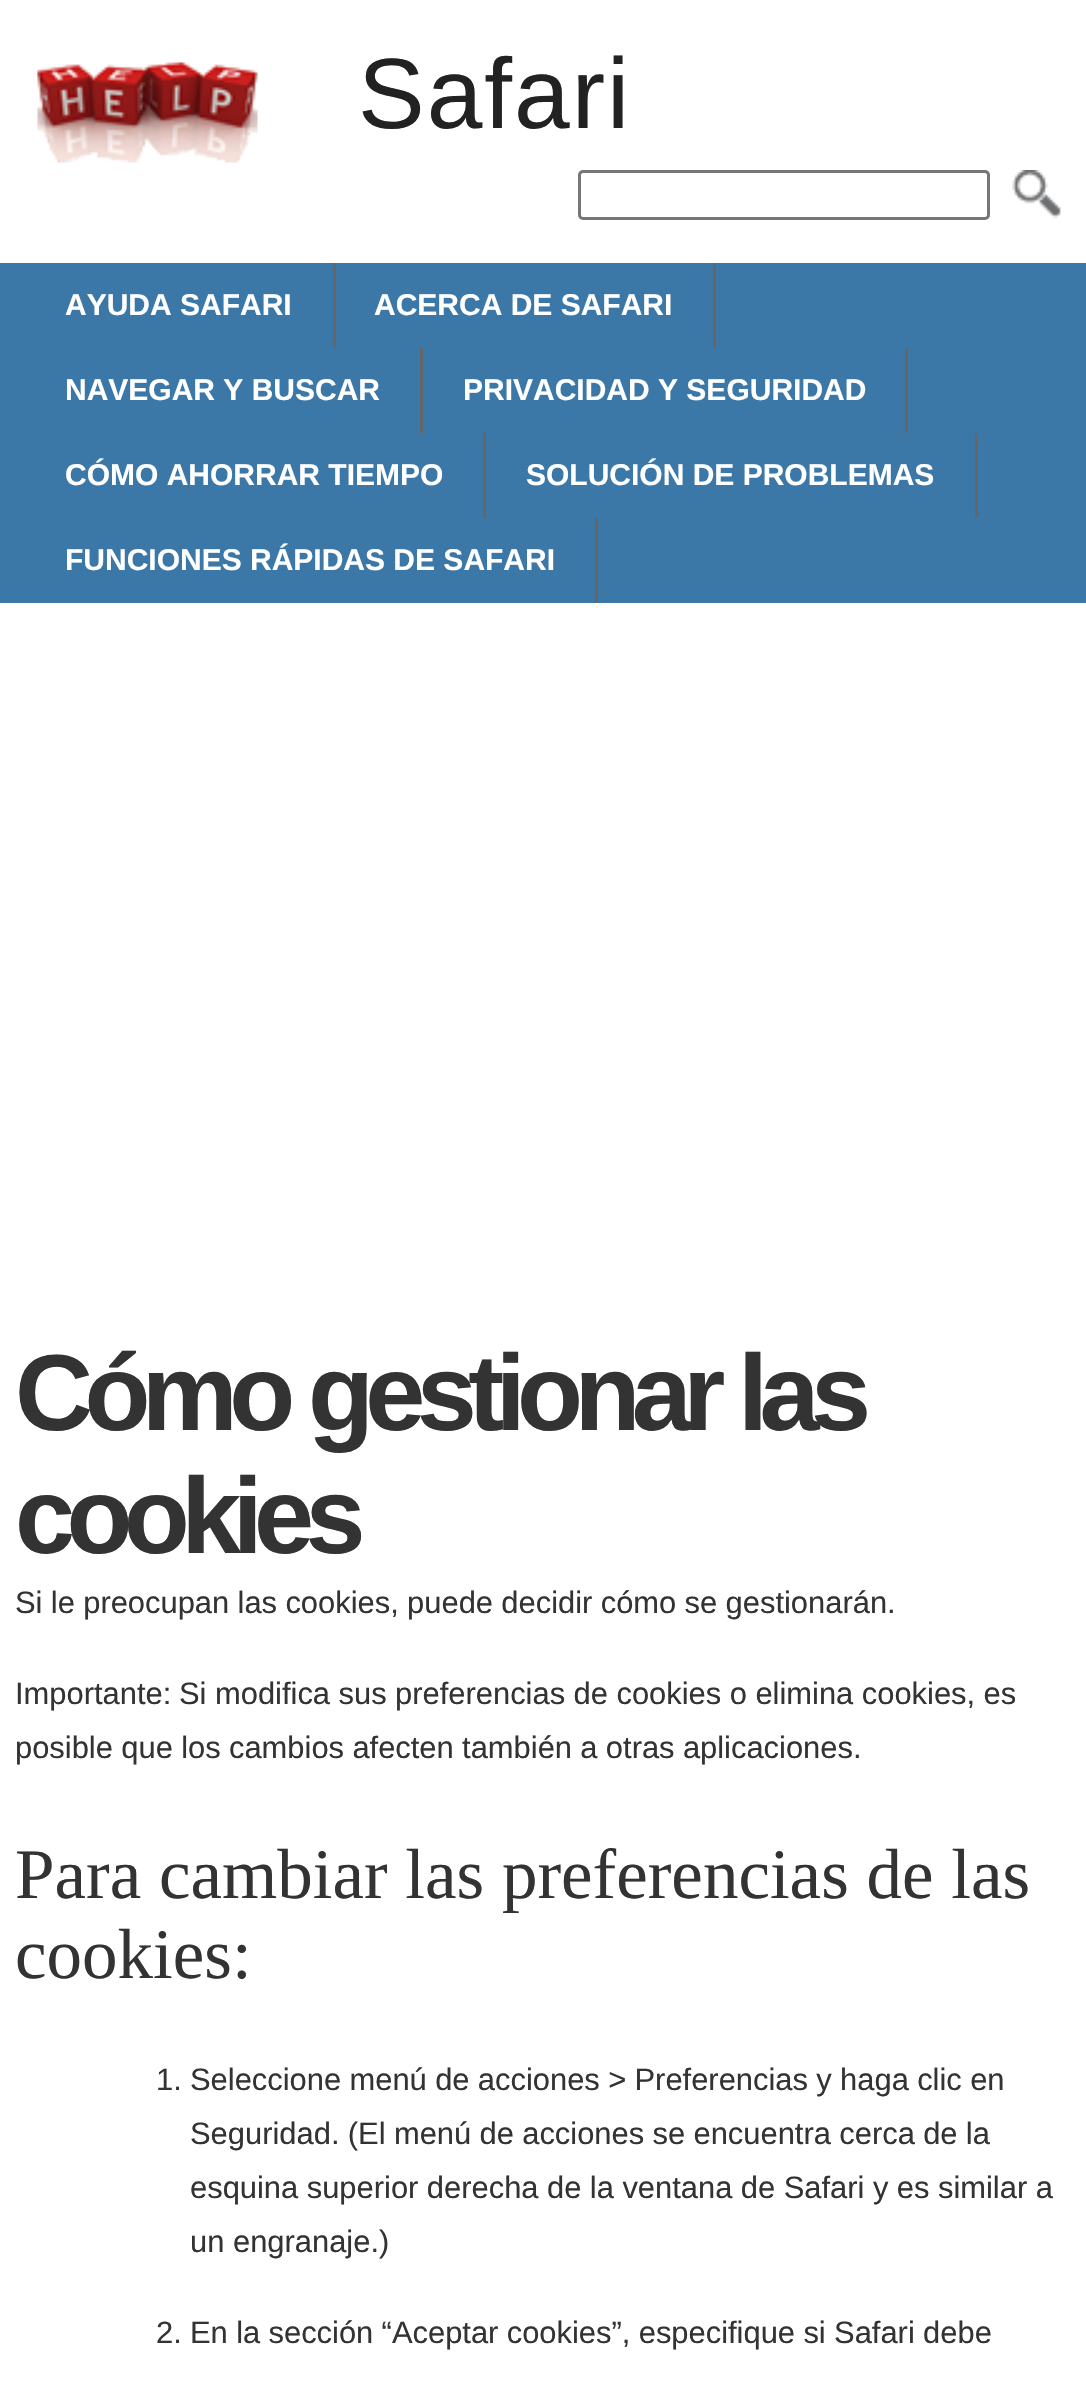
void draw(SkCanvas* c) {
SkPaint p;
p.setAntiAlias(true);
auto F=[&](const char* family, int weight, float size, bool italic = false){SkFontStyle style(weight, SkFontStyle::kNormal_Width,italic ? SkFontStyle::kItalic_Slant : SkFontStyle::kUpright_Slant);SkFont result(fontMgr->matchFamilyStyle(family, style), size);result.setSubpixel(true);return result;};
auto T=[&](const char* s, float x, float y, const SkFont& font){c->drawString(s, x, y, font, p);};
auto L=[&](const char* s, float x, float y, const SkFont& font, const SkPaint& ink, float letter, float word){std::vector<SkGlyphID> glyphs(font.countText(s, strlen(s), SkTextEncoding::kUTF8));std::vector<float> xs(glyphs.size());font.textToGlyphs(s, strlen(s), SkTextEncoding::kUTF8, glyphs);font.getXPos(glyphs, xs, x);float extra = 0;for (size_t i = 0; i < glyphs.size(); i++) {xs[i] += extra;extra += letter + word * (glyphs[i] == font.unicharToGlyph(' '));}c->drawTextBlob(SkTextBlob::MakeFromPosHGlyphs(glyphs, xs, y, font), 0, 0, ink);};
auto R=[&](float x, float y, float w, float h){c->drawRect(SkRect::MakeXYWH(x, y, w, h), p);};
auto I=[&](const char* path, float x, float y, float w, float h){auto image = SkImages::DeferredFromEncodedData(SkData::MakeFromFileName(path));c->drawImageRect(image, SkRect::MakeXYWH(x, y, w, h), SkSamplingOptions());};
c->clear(0xffffffff);
I("1.png",37,62,221,101);
auto f1 = F("Liberation Sans",400,100);
p.setColor(0xff222222);
L("Safari",358,128,f1,p,2,0);
p.setStroke(true);
p.setStrokeWidth(3);
p.setColor(0xff767676);
c->drawRoundRect(SkRect::MakeXYWH(579.5,171.5,409,47),3.5,3.5,p);
I("2.png",1012,170,49,49);
p.setStroke(false);
p.setColor(0xff3c78a7);
R(0,263,1086,340);
p.setColor(0xff666666);
R(333,263,3,85);
auto f2 = F("Liberation Sans",700,30);
p.setColor(0xffffffff);
T("AYUDA SAFARI",65,315,f2);
p.setColor(0xff666666);
R(713,263,3,85);
p.setColor(0xffffffff);
T("ACERCA DE SAFARI",374,315,f2);
p.setColor(0xff666666);
R(420,348,3,85);
p.setColor(0xffffffff);
T("NAVEGAR Y BUSCAR",65,400,f2);
p.setColor(0xff666666);
R(905,348,3,85);
p.setColor(0xffffffff);
T("PRIVACIDAD Y SEGURIDAD",463,400,f2);
p.setColor(0xff666666);
R(483,433,3,85);
p.setColor(0xffffffff);
T("CÓMO AHORRAR TIEMPO",65,485,f2);
p.setColor(0xff666666);
R(975,433,3,85);
p.setColor(0xffffffff);
T("SOLUCIÓN DE PROBLEMAS",526,485,f2);
p.setColor(0xff666666);
R(595,518,3,85);
p.setColor(0xffffffff);
T("FUNCIONES RÁPIDAS DE SAFARI",65,570,f2);
auto f3 = F("Liberation Sans",700,108);
p.setColor(0xff333333);
L("Cómo gestionar las",15,1430,f3,p,-8.6,0);
L("cookies",15,1553,f3,p,-8.6,0);
auto f4 = F("Liberation Sans",400,30.9);
L("Si le preocupan las cookies, puede decidir cómo se gestionarán.",15,1613,f4,p,0,-.25);
T("Importante:",15,1704,f4);
L("Si modifica sus preferencias de cookies o elimina cookies, es",179,1704,f4,p,0,-.1);
L("posible que los cambios afecten también a otras aplicaciones.",15,1758,f4,p,0,-.25);
auto f5 = F("Liberation Serif",400,71);
T("Para cambiar las preferencias de las",15,1898,f5);
T("cookies:",15,1978,f5);
T("1.",156,2090,f4);
L("Seleccione menú de acciones > Preferencias y haga clic en",190,2090,f4,p,0,-.25);
L("Seguridad. (El menú de acciones se encuentra cerca de la",190,2144,f4,p,0,-.25);
L("esquina superior derecha de la ventana de Safari y es similar a",190,2198,f4,p,0,-.1);
T("un engranaje.)",190,2252,f4);
T("2.",156,2343,f4);
L("En la sección “Aceptar cookies”, especifique si Safari debe",190,2343,f4,p,0,-.25);
}
